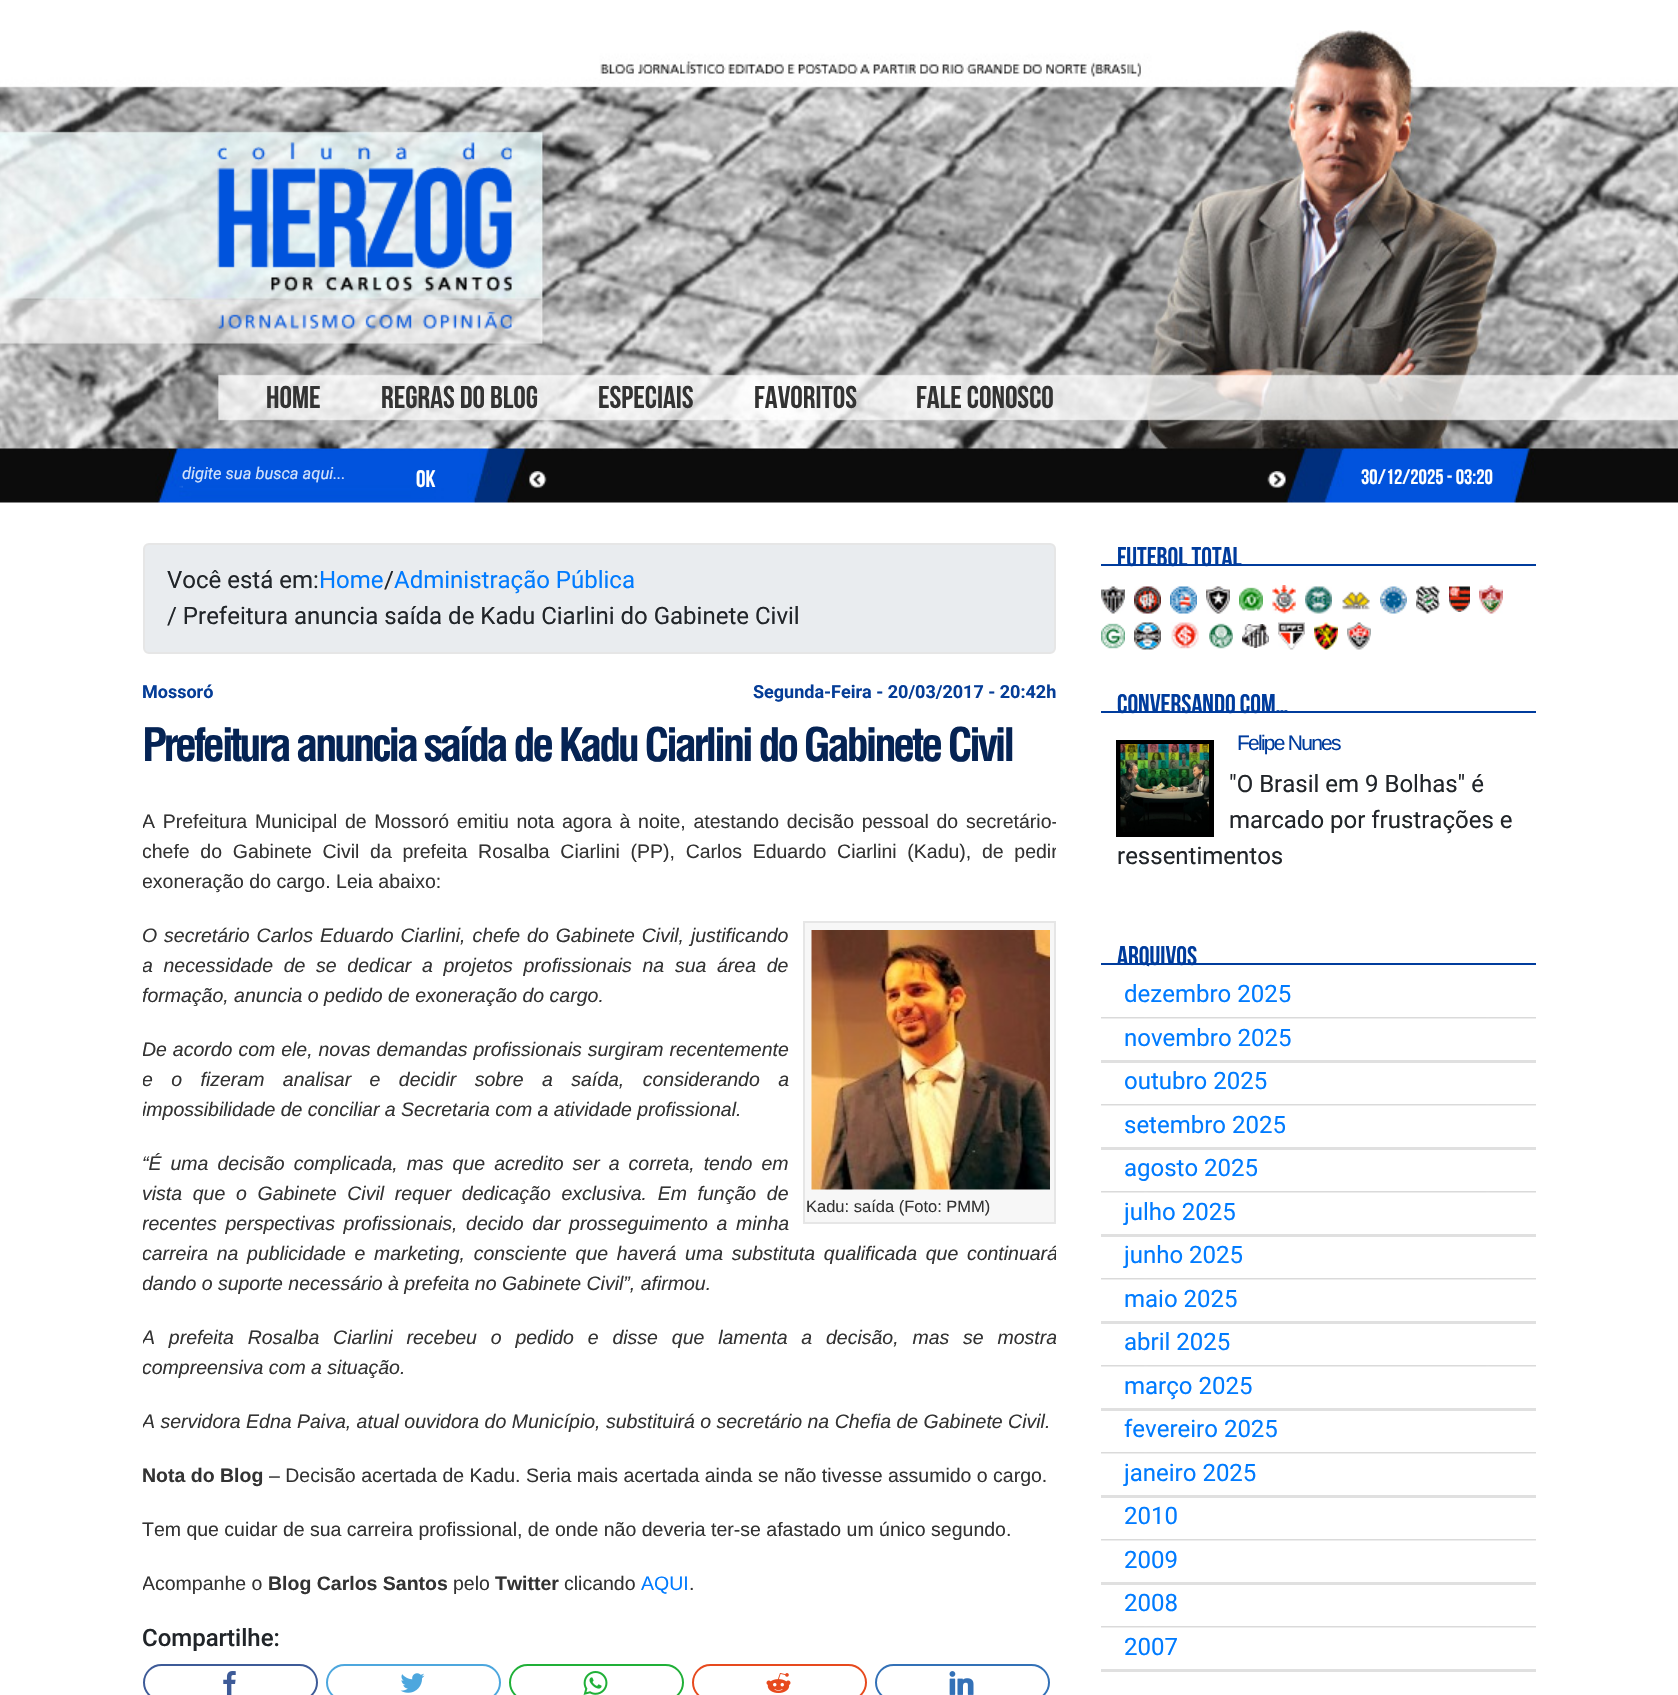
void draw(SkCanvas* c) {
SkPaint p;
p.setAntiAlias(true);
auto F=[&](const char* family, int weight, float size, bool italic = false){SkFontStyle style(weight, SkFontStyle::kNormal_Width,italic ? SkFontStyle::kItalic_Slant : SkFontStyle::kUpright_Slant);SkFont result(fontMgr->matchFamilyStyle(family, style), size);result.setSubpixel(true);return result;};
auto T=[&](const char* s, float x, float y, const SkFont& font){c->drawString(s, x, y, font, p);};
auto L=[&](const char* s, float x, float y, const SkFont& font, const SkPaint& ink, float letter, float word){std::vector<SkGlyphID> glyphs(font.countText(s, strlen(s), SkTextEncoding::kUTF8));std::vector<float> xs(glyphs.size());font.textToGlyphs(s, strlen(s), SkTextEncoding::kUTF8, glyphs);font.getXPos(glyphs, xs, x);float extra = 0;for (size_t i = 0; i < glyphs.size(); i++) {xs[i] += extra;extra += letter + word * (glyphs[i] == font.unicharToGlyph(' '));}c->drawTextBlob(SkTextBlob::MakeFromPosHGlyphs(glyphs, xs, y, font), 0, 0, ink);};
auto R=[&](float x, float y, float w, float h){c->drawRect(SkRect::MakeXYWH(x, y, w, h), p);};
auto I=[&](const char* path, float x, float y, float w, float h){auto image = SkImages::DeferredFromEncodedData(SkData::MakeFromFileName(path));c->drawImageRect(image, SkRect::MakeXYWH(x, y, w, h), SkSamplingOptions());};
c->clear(0xffffffff);
I("1.png",0,30,1678,473);
I("2.png",217,142,295,187);
auto f1 = F("Bebas Neue",400,31.5);
p.setColor(0xff333333);
T("HOME",266,408,f1);
T("REGRAS DO BLOG",381,408,f1);
T("ESPECIAIS",598,408,f1);
T("FAVORITOS",754,408,f1);
T("FALE CONOSCO",916,408,f1);
p.setColor(0xff0053dc);
R(183,485,228,3);
auto f2 = F("Roboto",400,16.5,true);
p.setColor(0xffd3e2fb);
T("digite sua busca aqui...",182,479,f2);
p.setColor(0xff0053dc);
R(411,485,23,13);
auto f3 = F("Bebas Neue",400,24);
p.setColor(0xffffffff);
T("OK",416,487,f3);
I("3.png",529,471,18,17);
I("4.png",1267,471,19,17);
auto f4 = F("Bebas Neue",400,21);
T("30/12/2025 - 03:20",1361,484,f4);
p.setColor(0xffe9ecef);
c->drawRoundRect(SkRect::MakeXYWH(144,544,911,109),5,5,p);
p.setStroke(true);
p.setStrokeWidth(2);
p.setColor(0xffe6e6e6);
c->drawRoundRect(SkRect::MakeXYWH(144,544,911,109),5,5,p);
auto f5 = F("Roboto",400,24);
p.setStroke(false);
p.setColor(0xff212529);
T("Você está em:",167,588,f5);
p.setColor(0xff007bff);
T("Home",319,588,f5);
p.setColor(0xff212529);
T("/",384,588,f5);
p.setColor(0xff007bff);
T("Administração Pública",394,588,f5);
p.setColor(0xff212529);
T("/ Prefeitura anuncia saída de Kadu Ciarlini do Gabinete Civil",167,624,f5);
auto f6 = F("Roboto",700,18);
p.setColor(0xff053d97);
T("Mossoró",142,698,f6);
auto f7 = F("Helvetica",700,45);
p.setColor(0xff052354);
L("Prefeitura anuncia saída de Kadu Ciarlini do Gabinete Civil",142,761,f7,p,-3.6,0);
p.setColor(0xff053d97);
T("Segunda-Feira - 20/03/2017 - 20:42h",753,698,f6);
c->save();
c->clipRect(SkRect::MakeXYWH(143,807,913,816));
auto f8 = F("Liberation Sans",400,19.5);
p.setColor(0xff333333);
L("A Prefeitura Municipal de Mossoró emitiu nota agora à noite, atestando decisão pessoal do secretário-",142,828,f8,p,0,2.25);
L("chefe do Gabinete Civil da prefeita Rosalba Ciarlini (PP), Carlos Eduardo Ciarlini (Kadu), de pedir",142,858,f8,p,0,5.25);
T("exoneração do cargo. Leia abaixo:",142,888,f8);
auto f9 = F("Liberation Sans",400,19.5,true);
L("O secretário Carlos Eduardo Ciarlini, chefe do Gabinete Civil, justificando",142,942,f9,p,0,1.5);
L("a necessidade de se dedicar a projetos profissionais na sua área de",142,972,f9,p,0,5.25);
T("formação, anuncia o pedido de exoneração do cargo.",142,1002,f9);
L("De acordo com ele, novas demandas profissionais surgiram recentemente",142,1056,f9,p,0,.5);
L("e o fizeram analisar e decidir sobre a saída, considerando a",142,1086,f9,p,0,13);
T("impossibilidade de conciliar a Secretaria com a atividade profissional.",142,1116,f9);
c->restore();
L("“É uma decisão complicada, mas que acredito ser a correta, tendo em",142,1170,f9,p,0,3.6);
L("vista que o Gabinete Civil requer dedicação exclusiva. Em função de",142,1200,f9,p,0,5.25);
c->save();
c->clipRect(SkRect::MakeXYWH(143,807,913,816));
L("recentes perspectivas profissionais, decido dar prosseguimento a minha",142,1230,f9,p,0,3.25);
L("carreira na publicidade e marketing, consciente que haverá uma substituta qualificada que continuará",142,1260,f9,p,0,3.25);
T("dando o suporte necessário à prefeita no Gabinete Civil”, afirmou.",142,1290,f9);
c->restore();
p.setColor(0xfff7f7f7);
c->drawRect(SkRect::MakeXYWH(804,922,251,301),p);
p.setStroke(true);
p.setColor(0xffe6e6e6);
c->drawRect(SkRect::MakeXYWH(804,922,251,301),p);
I("5.png",811,930,239,260);
auto f10 = F("Liberation Sans",400,16.5);
p.setStroke(false);
p.setColor(0xff333333);
T("Kadu: saída (Foto: PMM)",806,1212,f10);
c->save();
c->clipRect(SkRect::MakeXYWH(143,807,913,816));
L("A prefeita Rosalba Ciarlini recebeu o pedido e disse que lamenta a decisão, mas se mostra",142,1344,f9,p,0,8.4);
T("compreensiva com a situação.",142,1374,f9);
T("A servidora Edna Paiva, atual ouvidora do Município, substituirá o secretário na Chefia de Gabinete Civil.",142,1428,f9);
c->restore();
auto f11 = F("Liberation Sans",700,19.5);
T("Nota do Blog",142,1482,f11);
T("– Decisão acertada de Kadu. Seria mais acertada ainda se não tivesse assumido o cargo.",269,1482,f8);
T("Tem que cuidar de sua carreira profissional, de onde não deveria ter-se afastado um único segundo.",142,1536,f8);
c->save();
c->clipRect(SkRect::MakeXYWH(143,807,913,816));
T("Acompanhe o",142,1590,f8);
c->restore();
T("Blog Carlos Santos",268,1590,f11);
T("pelo",453,1590,f8);
T("Twitter",495,1590,f11);
T("clicando",564,1590,f8);
p.setColor(0xff007bff);
T("AQUI",641,1590,f8);
p.setColor(0xff333333);
T(".",689,1590,f8);
auto f12 = F("Roboto",500,24);
p.setColor(0xff212529);
T("Compartilhe:",142,1646,f12);
p.setStroke(true);
p.setColor(0xff3e5b98);
c->drawRoundRect(SkRect::MakeXYWH(144,1665,173,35),17.5,17.5,p);
I("6.png",223,1671,13,24);
p.setColor(0xff4da7de);
c->drawRoundRect(SkRect::MakeXYWH(327,1665,173,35),17.5,17.5,p);
I("7.png",400,1673,25,20);
p.setColor(0xff20b038);
c->drawRoundRect(SkRect::MakeXYWH(510,1665,173,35),17.5,17.5,p);
I("8.png",583,1671,25,24);
p.setColor(0xffe74a1e);
c->drawRoundRect(SkRect::MakeXYWH(693,1665,173,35),17.5,17.5,p);
I("9.png",766,1673,25,20);
p.setColor(0xff3371b7);
c->drawRoundRect(SkRect::MakeXYWH(876,1665,173,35),17.5,17.5,p);
I("10.png",949,1671,25,24);
p.setStroke(false);
p.setColor(0xff003c9d);
R(1101,564,435,2);
auto f13 = F("Bebas Neue",400,27);
T("FUTEBOL TOTAL",1117,566,f13);
I("11.png",1101,586,24,28);
I("12.png",1134,586,27,28);
I("13.png",1170,586,27,28);
I("14.png",1206,586,24,28);
I("15.png",1239,587,24,24);
I("16.png",1272,585,24,29);
I("17.png",1305,586,27,28);
I("18.png",1342,591,28,19);
I("19.png",1380,586,27,28);
I("20.png",1416,586,24,28);
I("21.png",1449,586,21,26);
I("22.png",1479,585,24,29);
I("23.png",1101,623,24,26);
I("24.png",1134,622,27,28);
I("25.png",1170,622,29,27);
I("26.png",1209,623,24,26);
I("27.png",1242,624,27,24);
I("28.png",1278,622,27,28);
I("29.png",1314,622,24,28);
I("30.png",1347,622,24,28);
R(1101,711,435,2);
T("CONVERSANDO COM…",1117,713,f13);
p.setColor(0xff000000);
R(1116,740,98,97);
I("31.png",1120,744,89,88);
auto f14 = F("Liberation Sans",400,21);
p.setColor(0xff003c9d);
L("Felipe Nunes",1237,750,f14,p,-1.75,0);
p.setColor(0xff212529);
T("\"O Brasil em 9 Bolhas\" é",1229,792,f5);
T("marcado por frustrações e",1229,828,f5);
T("ressentimentos",1117,864,f5);
p.setColor(0xff003c9d);
R(1101,963,435,2);
T("ARQUIVOS",1117,965,f13);
I("32.png",1101,1017,435,2);
p.setColor(0xff007bff);
T("dezembro 2025",1124,1002,f5);
p.setColor(0xffe0e0e0);
R(1101,1060,435,3);
p.setColor(0xff007bff);
T("novembro 2025",1124,1046,f5);
I("32.png",1101,1104,435,2);
T("outubro 2025",1124,1089,f5);
p.setColor(0xffe0e0e0);
R(1101,1147,435,3);
p.setColor(0xff007bff);
T("setembro 2025",1124,1133,f5);
I("33.png",1101,1191,435,2);
T("agosto 2025",1124,1176,f5);
p.setColor(0xffe0e0e0);
R(1101,1234,435,3);
p.setColor(0xff007bff);
T("julho 2025",1124,1220,f5);
I("32.png",1101,1278,435,2);
T("junho 2025",1124,1263,f5);
p.setColor(0xffe0e0e0);
R(1101,1321,435,3);
p.setColor(0xff007bff);
T("maio 2025",1124,1307,f5);
I("33.png",1101,1365,435,2);
T("abril 2025",1124,1350,f5);
p.setColor(0xffe0e0e0);
R(1101,1408,435,3);
p.setColor(0xff007bff);
T("março 2025",1124,1394,f5);
I("32.png",1101,1452,435,2);
T("fevereiro 2025",1124,1437,f5);
p.setColor(0xffe0e0e0);
R(1101,1495,435,3);
p.setColor(0xff007bff);
T("janeiro 2025",1124,1481,f5);
I("32.png",1101,1539,435,2);
T("2010",1124,1524,f5);
p.setColor(0xffe0e0e0);
R(1101,1582,435,3);
p.setColor(0xff007bff);
T("2009",1124,1568,f5);
I("32.png",1101,1626,435,2);
T("2008",1124,1611,f5);
p.setColor(0xffe0e0e0);
R(1101,1669,435,3);
p.setColor(0xff007bff);
T("2007",1124,1655,f5);
}
